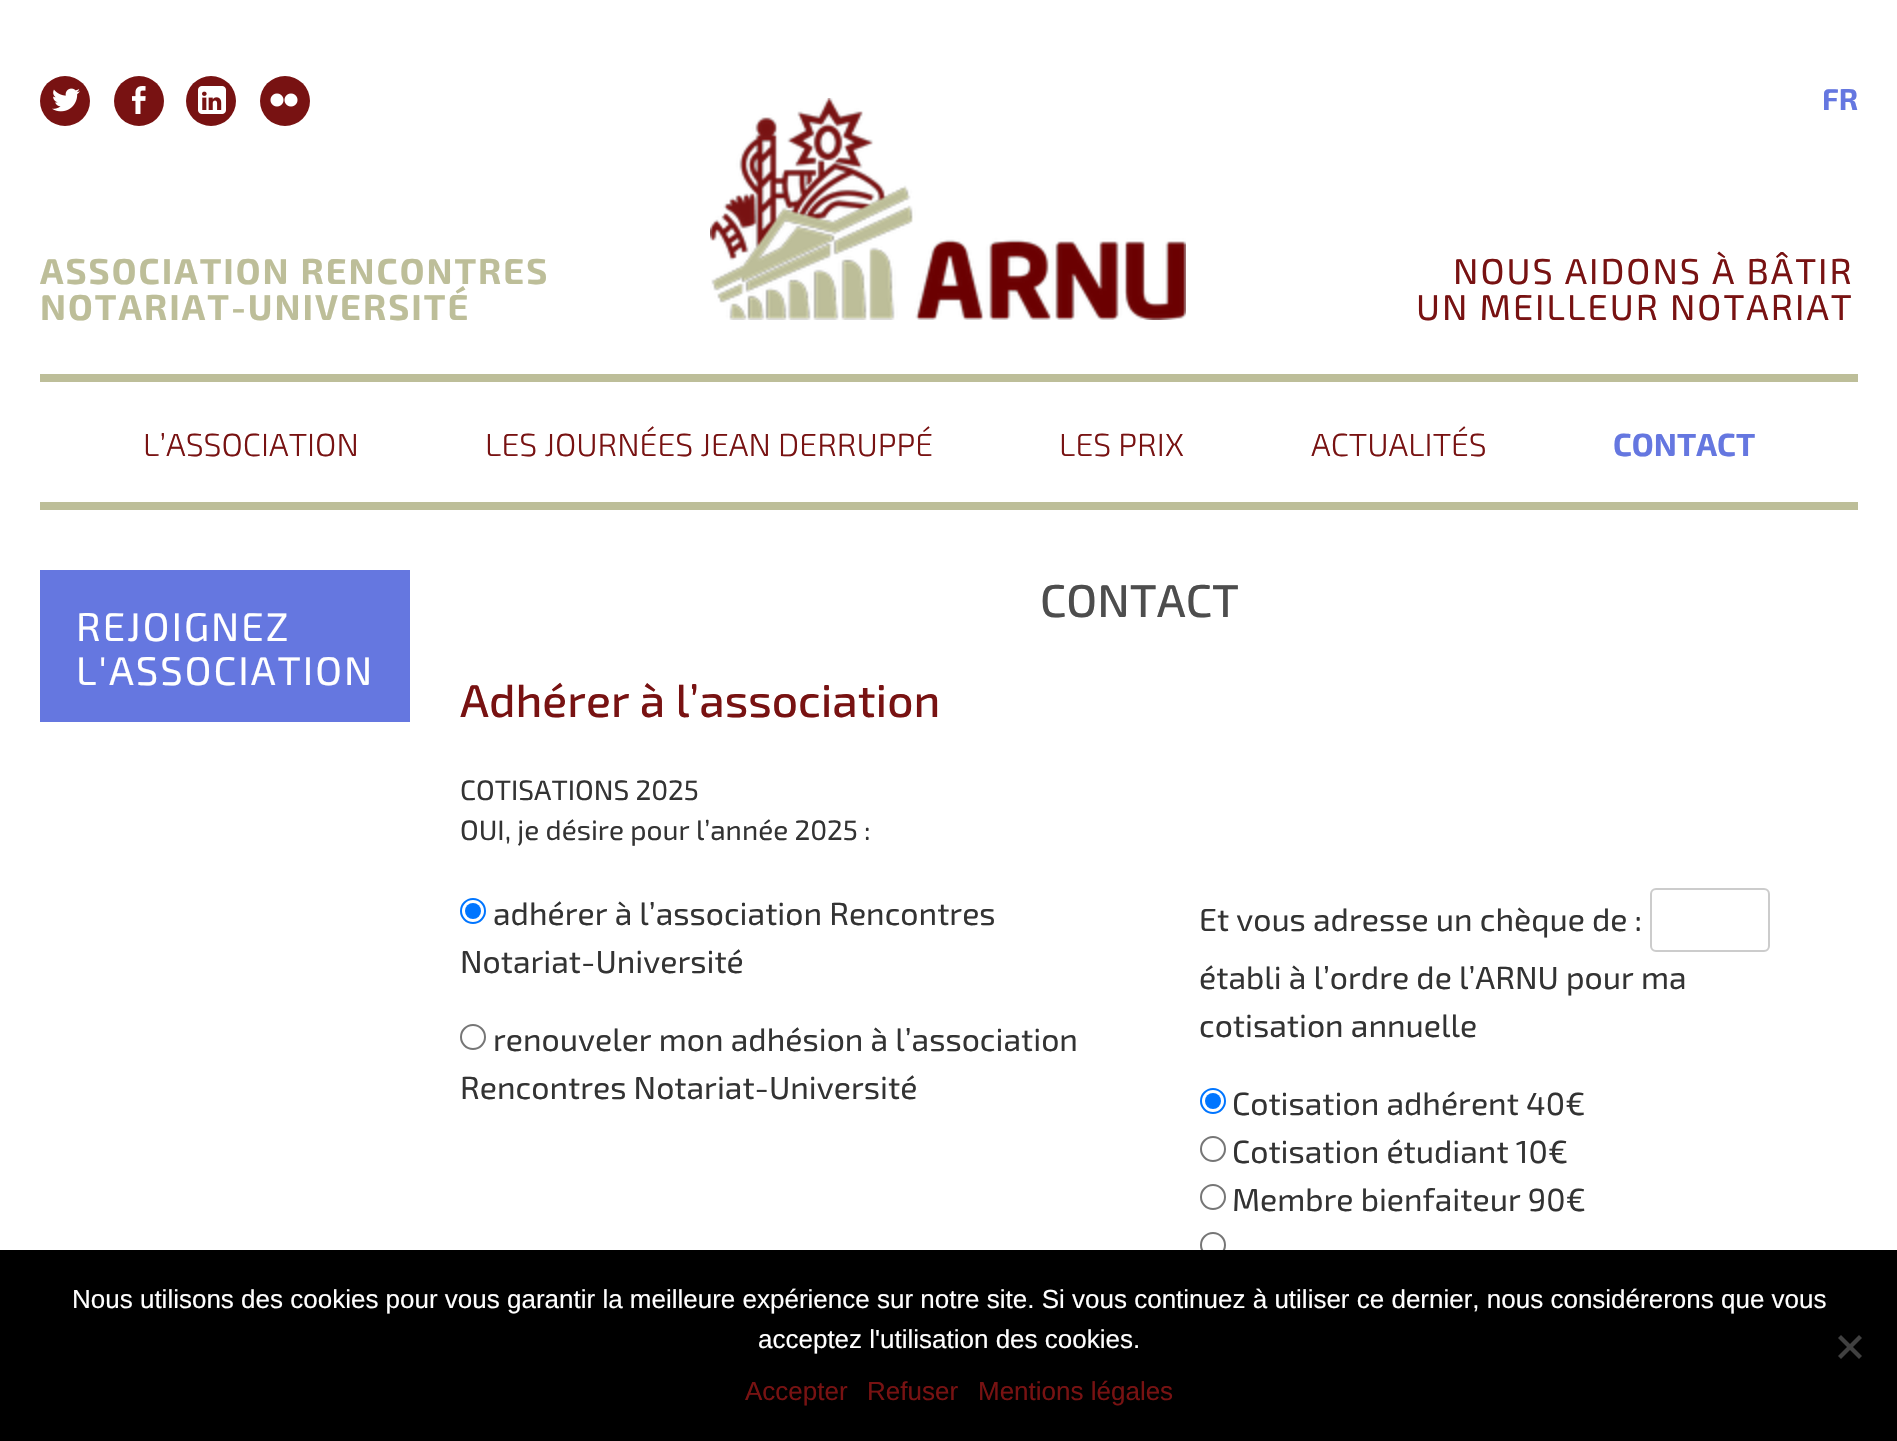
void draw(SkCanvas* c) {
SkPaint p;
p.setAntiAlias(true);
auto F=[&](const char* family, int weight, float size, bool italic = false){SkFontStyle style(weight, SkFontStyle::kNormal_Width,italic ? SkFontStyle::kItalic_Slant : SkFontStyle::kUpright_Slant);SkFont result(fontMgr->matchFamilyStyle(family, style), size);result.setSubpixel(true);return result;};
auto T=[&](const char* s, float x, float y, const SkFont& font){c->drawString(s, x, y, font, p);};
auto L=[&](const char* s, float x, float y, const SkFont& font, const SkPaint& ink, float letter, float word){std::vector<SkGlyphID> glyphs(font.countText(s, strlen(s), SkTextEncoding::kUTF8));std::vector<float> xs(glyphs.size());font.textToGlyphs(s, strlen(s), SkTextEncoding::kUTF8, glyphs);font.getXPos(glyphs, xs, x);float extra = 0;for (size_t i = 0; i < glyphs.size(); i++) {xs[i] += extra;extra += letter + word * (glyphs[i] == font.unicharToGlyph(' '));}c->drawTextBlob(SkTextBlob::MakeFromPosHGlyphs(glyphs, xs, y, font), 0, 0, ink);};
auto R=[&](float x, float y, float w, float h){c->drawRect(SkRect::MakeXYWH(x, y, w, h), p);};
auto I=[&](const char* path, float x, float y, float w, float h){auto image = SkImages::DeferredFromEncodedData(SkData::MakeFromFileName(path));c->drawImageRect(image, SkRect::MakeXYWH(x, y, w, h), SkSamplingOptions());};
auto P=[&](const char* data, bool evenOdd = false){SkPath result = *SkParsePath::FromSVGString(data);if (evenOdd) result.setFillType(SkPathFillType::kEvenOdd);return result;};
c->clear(0xffffffff);
p.setColor(0xffbdbe99);
R(40,502,1818,8);
p.setColor(0xff781212);
c->drawCircle(65,101,25,p);
I("1.png",52,88,28,24);
c->drawCircle(139,101,25,p);
I("2.png",132,86,14,28);
c->drawCircle(211,101,25,p);
I("3.png",198,86,28,28);
c->drawCircle(285,101,25,p);
I("4.png",270,93,28,14);
auto f1 = F("Exo 2",700,30);
p.setColor(0xff6577e0);
T("FR",1822,110,f1);
p.setColor(0xffbdbe99);
R(40,374,1818,8);
auto f2 = F("Exo 2",700,36);
L("ASSOCIATION RENCONTRES",40,284,f2,p,2,0);
L("NOTARIAT-UNIVERSITÉ",40,320,f2,p,2,0);
I("5.png",710,98,476,222);
auto f3 = F("Exo 2",400,36);
p.setColor(0xff781212);
L("NOUS AIDONS À BÂTIR",1453,284,f3,p,2,0);
L("UN MEILLEUR NOTARIAT",1416,320,f3,p,2,0);
auto f4 = F("Exo 2",300,32);
T("L’ASSOCIATION",143,456,f4);
T("LES JOURNÉES JEAN DERRUPPÉ",485,456,f4);
T("LES PRIX",1059,456,f4);
T("ACTUALITÉS",1311,456,f4);
auto f5 = F("Exo 2",700,32);
p.setColor(0xff6577e0);
T("CONTACT",1613,456,f5);
R(40,570,370,152);
auto f6 = F("Exo 2",400,40);
p.setColor(0xffffffff);
L("REJOIGNEZ",76,641,f6,p,2,0);
L("L'ASSOCIATION",76,685,f6,p,2,0);
auto f7 = F("Exo 2",500,46);
p.setColor(0xff4d4d4d);
T("CONTACT",1040,617,f7);
p.setColor(0xff781212);
T("Adhérer à l’association",460,717,f7);
auto f8 = F("Exo 2",400,28);
p.setColor(0xff333333);
T("COTISATIONS 2025",460,800,f8);
T("OUI, je désire pour l’année 2025 :",460,840,f8);
p.setStroke(true);
p.setStrokeWidth(2);
p.setColor(0xff0075ff);
c->drawCircle(473,911,12,p);
p.setStroke(false);
c->drawCircle(473,911,8,p);
auto f9 = F("Exo 2",400,32);
p.setColor(0xff333333);
T("adhérer à l’association Rencontres",493,925,f9);
T("Notariat-Université",460,973,f9);
p.setStroke(true);
p.setColor(0xff767676);
c->drawCircle(473,1037,12,p);
p.setStroke(false);
p.setColor(0xff333333);
T("renouveler mon adhésion à l’association",493,1051,f9);
T("Rencontres Notariat-Université",460,1099,f9);
T("Et vous adresse un chèque de :",1199,931,f9);
p.setStroke(true);
p.setColor(0xffcccccc);
c->drawRoundRect(SkRect::MakeXYWH(1651,889,118,62),5,5,p);
p.setStroke(false);
p.setColor(0xff333333);
T("établi à l’ordre de l’ARNU pour ma",1199,989,f9);
T("cotisation annuelle",1199,1037,f9);
p.setStroke(true);
p.setColor(0xff0075ff);
c->drawCircle(1213,1101,12,p);
p.setStroke(false);
c->drawCircle(1213,1101,8,p);
p.setColor(0xff333333);
T("Cotisation adhérent 40€",1232,1115,f9);
p.setStroke(true);
p.setColor(0xff767676);
c->drawCircle(1213,1149,12,p);
p.setStroke(false);
p.setColor(0xff333333);
T("Cotisation étudiant 10€",1232,1163,f9);
p.setStroke(true);
p.setColor(0xff767676);
c->drawCircle(1213,1197,12,p);
p.setStroke(false);
p.setColor(0xff333333);
T("Membre bienfaiteur 90€",1232,1211,f9);
p.setStroke(true);
p.setColor(0xff767676);
c->drawCircle(1213,1245,12,p);
p.setStroke(false);
p.setColor(0xff000000);
R(0,1250,1897,191);
auto f10 = F("Liberation Sans",400,26);
p.setColor(0xffffffff);
T("Nous utilisons des cookies pour vous garantir la meilleure expérience sur notre site. Si vous continuez à utiliser ce dernier, nous considérerons que vous",72,1308,f10);
T("acceptez l'utilisation des cookies.",758,1348,f10);
p.setColor(0xff404040);
c->drawPath(P("M1859 1335l3 3l-21 21l-3-3z"),p);
c->drawPath(P("M1838 1338l3-3l21 21l-3 3z"),p);
p.setColor(0xff781212);
T("Accepter",745,1400,f10);
T("Refuser",867,1400,f10);
T("Mentions légales",978,1400,f10);
}
